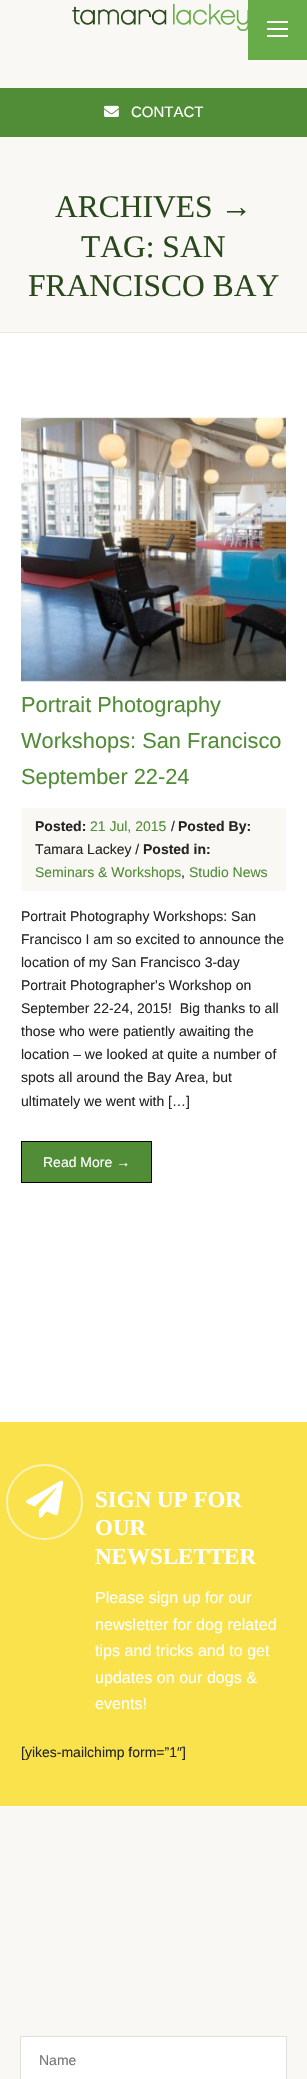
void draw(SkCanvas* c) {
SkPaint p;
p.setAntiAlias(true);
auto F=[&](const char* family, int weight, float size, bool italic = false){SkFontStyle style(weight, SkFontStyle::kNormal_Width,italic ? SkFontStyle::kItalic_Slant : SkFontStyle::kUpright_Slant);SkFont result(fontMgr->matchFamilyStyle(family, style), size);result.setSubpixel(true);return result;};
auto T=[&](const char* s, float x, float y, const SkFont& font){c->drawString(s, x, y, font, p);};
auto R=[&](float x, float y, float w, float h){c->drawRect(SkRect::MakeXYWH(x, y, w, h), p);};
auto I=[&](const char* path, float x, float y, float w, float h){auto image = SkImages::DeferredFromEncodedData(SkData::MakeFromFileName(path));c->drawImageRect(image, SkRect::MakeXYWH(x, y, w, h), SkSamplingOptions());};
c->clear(0xffffffff);
p.setColor(0xfff9f8f5);
R(0,0,307,88);
I("1.png",72,3,176,28);
p.setColor(0xff68ac49);
R(248,0,59,60);
p.setColor(0xffffffff);
R(267,21,21,2);
R(267,28,21,2);
R(267,35,21,2);
p.setColor(0xff518c36);
R(0,88,307,49);
I("2.png",104,105,15,12);
auto f1 = F("Liberation Sans",400,15);
p.setColor(0xffffffff);
T("CONTACT",131,117,f1);
p.setColor(0xfff9f8f5);
R(0,137,307,195);
p.setColor(0xffeae9e6);
R(0,332,307,1);
auto f2 = F("Liberation Serif",400,31.5);
p.setColor(0xff2a491c);
T("ARCHIVES →",55,217,f2);
T("TAG: SAN",81,257,f2);
T("FRANCISCO BAY",28,296,f2);
I("3.png",21,417,265,265);
auto f3 = F("Liberation Sans",400,21.8);
p.setColor(0xff518c36);
T("Portrait Photography",21,712,f3);
T("Workshops: San Francisco",21,748,f3);
T("September 22-24",21,784,f3);
p.setColor(0xfff9f8f5);
R(21,808,265,83);
auto f4 = F("Liberation Sans",700,14);
p.setColor(0xff252525);
T("Posted:",35,831,f4);
auto f5 = F("Liberation Sans",400,14);
p.setColor(0xff518c36);
T("21 Jul, 2015",90,831,f5);
p.setColor(0xff252525);
T("/",171,831,f5);
T("Posted By:",178,831,f4);
T("Tamara Lackey /",35,854,f5);
T("Posted in:",143,854,f4);
p.setColor(0xff518c36);
T("Seminars & Workshops",35,877,f5);
p.setColor(0xff252525);
T(",",181,877,f5);
p.setColor(0xff518c36);
T("Studio News",189,877,f5);
p.setColor(0xff252525);
T("Portrait Photography Workshops: San",21,921,f5);
T("Francisco I am so excited to announce the",21,944,f5);
T("location of my San Francisco 3-day",21,967,f5);
T("Portrait Photographer’s Workshop on",21,990,f5);
T("September 22-24, 2015!  Big thanks to all",21,1013,f5);
T("those who were patiently awaiting the",21,1036,f5);
T("location – we looked at quite a number of",21,1059,f5);
T("spots all around the Bay Area, but",21,1082,f5);
T("ultimately we went with […]",21,1106,f5);
p.setColor(0xff518c36);
c->drawRect(SkRect::MakeXYWH(21.5,1141.5,130,41),p);
p.setStroke(true);
p.setStrokeWidth(1);
p.setColor(0xff000000);
c->drawRect(SkRect::MakeXYWH(21.5,1141.5,130,41),p);
p.setStroke(false);
p.setColor(0xffffffff);
T("Read More →",43,1167,f5);
p.setColor(0xfffae24c);
R(0,1422,307,384);
p.setStroke(true);
p.setStrokeWidth(2);
p.setColor(0xfffdf3b7);
c->drawRoundRect(SkRect::MakeXYWH(7,1465,75,74),37,37,p);
I("4.png",26,1480,38,38);
auto f6 = F("Liberation Serif",700,23);
p.setStroke(false);
p.setColor(0xffffffff);
T("SIGN UP FOR",95,1507,f6);
T("OUR",95,1535,f6);
T("NEWSLETTER",95,1564,f6);
auto f7 = F("Liberation Sans",400,16.1);
T("Please sign up for our",95,1603,f7);
T("newsletter for dog related",95,1630,f7);
T("tips and tricks and to get",95,1656,f7);
T("updates on our dogs &",95,1683,f7);
T("events!",95,1709,f7);
p.setColor(0xff252525);
T("[yikes-mailchimp form=”1″]",21,1757,f5);
p.setColor(0xfff9f8f5);
R(0,1806,307,273);
p.setStroke(true);
p.setStrokeWidth(1);
p.setColor(0xffe0dfdd);
c->drawRect(SkRect::MakeXYWH(20.5,2036.5,266,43),p);
p.setStroke(false);
p.setColor(0xffffffff);
R(21,2037,265,42);
p.setColor(0xff757575);
T("Name",39,2065,f5);
}
